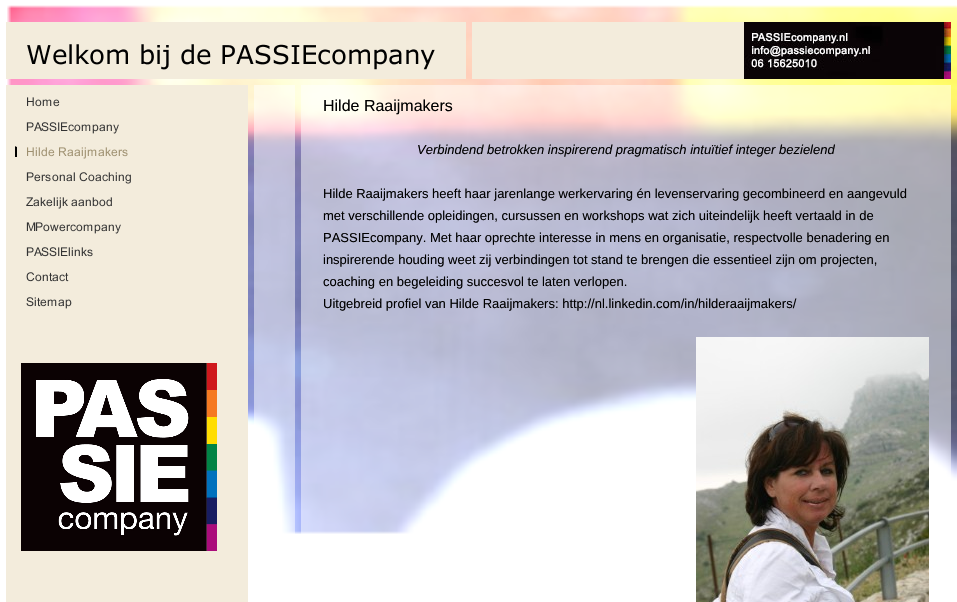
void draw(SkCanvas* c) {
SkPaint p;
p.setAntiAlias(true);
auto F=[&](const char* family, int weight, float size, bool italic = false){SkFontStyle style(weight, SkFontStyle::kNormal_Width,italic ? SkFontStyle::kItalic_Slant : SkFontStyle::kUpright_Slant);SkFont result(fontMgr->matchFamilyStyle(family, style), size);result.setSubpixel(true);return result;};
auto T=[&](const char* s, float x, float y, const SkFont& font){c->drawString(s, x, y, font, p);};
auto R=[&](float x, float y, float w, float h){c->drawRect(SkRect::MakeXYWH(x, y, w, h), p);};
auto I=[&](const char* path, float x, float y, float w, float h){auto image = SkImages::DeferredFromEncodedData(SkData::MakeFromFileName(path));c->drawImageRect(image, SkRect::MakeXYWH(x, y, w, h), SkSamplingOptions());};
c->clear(0xffffffff);
I("1.png",0,3,957,531);
p.setColor(0xfff3ecdc);
R(6,22,460,57);
I("2.png",27,44,408,26);
R(472,22,272,57);
I("3.png",744,22,207,57);
R(6,85,242,517);
I("4.png",27,97,33,10);
I("5.png",26,122,93,12);
I("6.png",15,146,113,13);
I("7.png",26,172,105,12);
I("8.png",26,197,86,12);
I("9.png",26,222,95,12);
I("10.png",26,247,67,10);
I("11.png",26,272,43,10);
I("12.png",26,297,46,12);
I("13.png",21,363,196,188);
p.setColor(0x80ffffff);
R(254,85,41,449);
R(301,85,650,449);
auto f1 = F("Liberation Sans",400,16);
p.setColor(0xff000000);
T("Hilde Raaijmakers",323,111,f1);
auto f2 = F("Liberation Sans",400,13,true);
T("Verbindend betrokken inspirerend pragmatisch intuïtief integer bezielend",417,154,f2);
auto f3 = F("Liberation Sans",400,13);
T("Hilde Raaijmakers heeft haar jarenlange werkervaring én levenservaring gecombineerd en aangevuld",323,198,f3);
T("met verschillende opleidingen, cursussen en workshops wat zich uiteindelijk heeft vertaald in de",323,220,f3);
T("PASSIEcompany. Met haar oprechte interesse in mens en organisatie, respectvolle benadering en",323,242,f3);
T("inspirerende houding weet zij verbindingen tot stand te brengen die essentieel zijn om projecten,",323,264,f3);
T("coaching en begeleiding succesvol te laten verlopen.",323,286,f3);
T("Uitgebreid profiel van Hilde Raaijmakers: http://nl.linkedin.com/in/hilderaaijmakers/",323,308,f3);
I("14.png",696,337,233,265);
}
